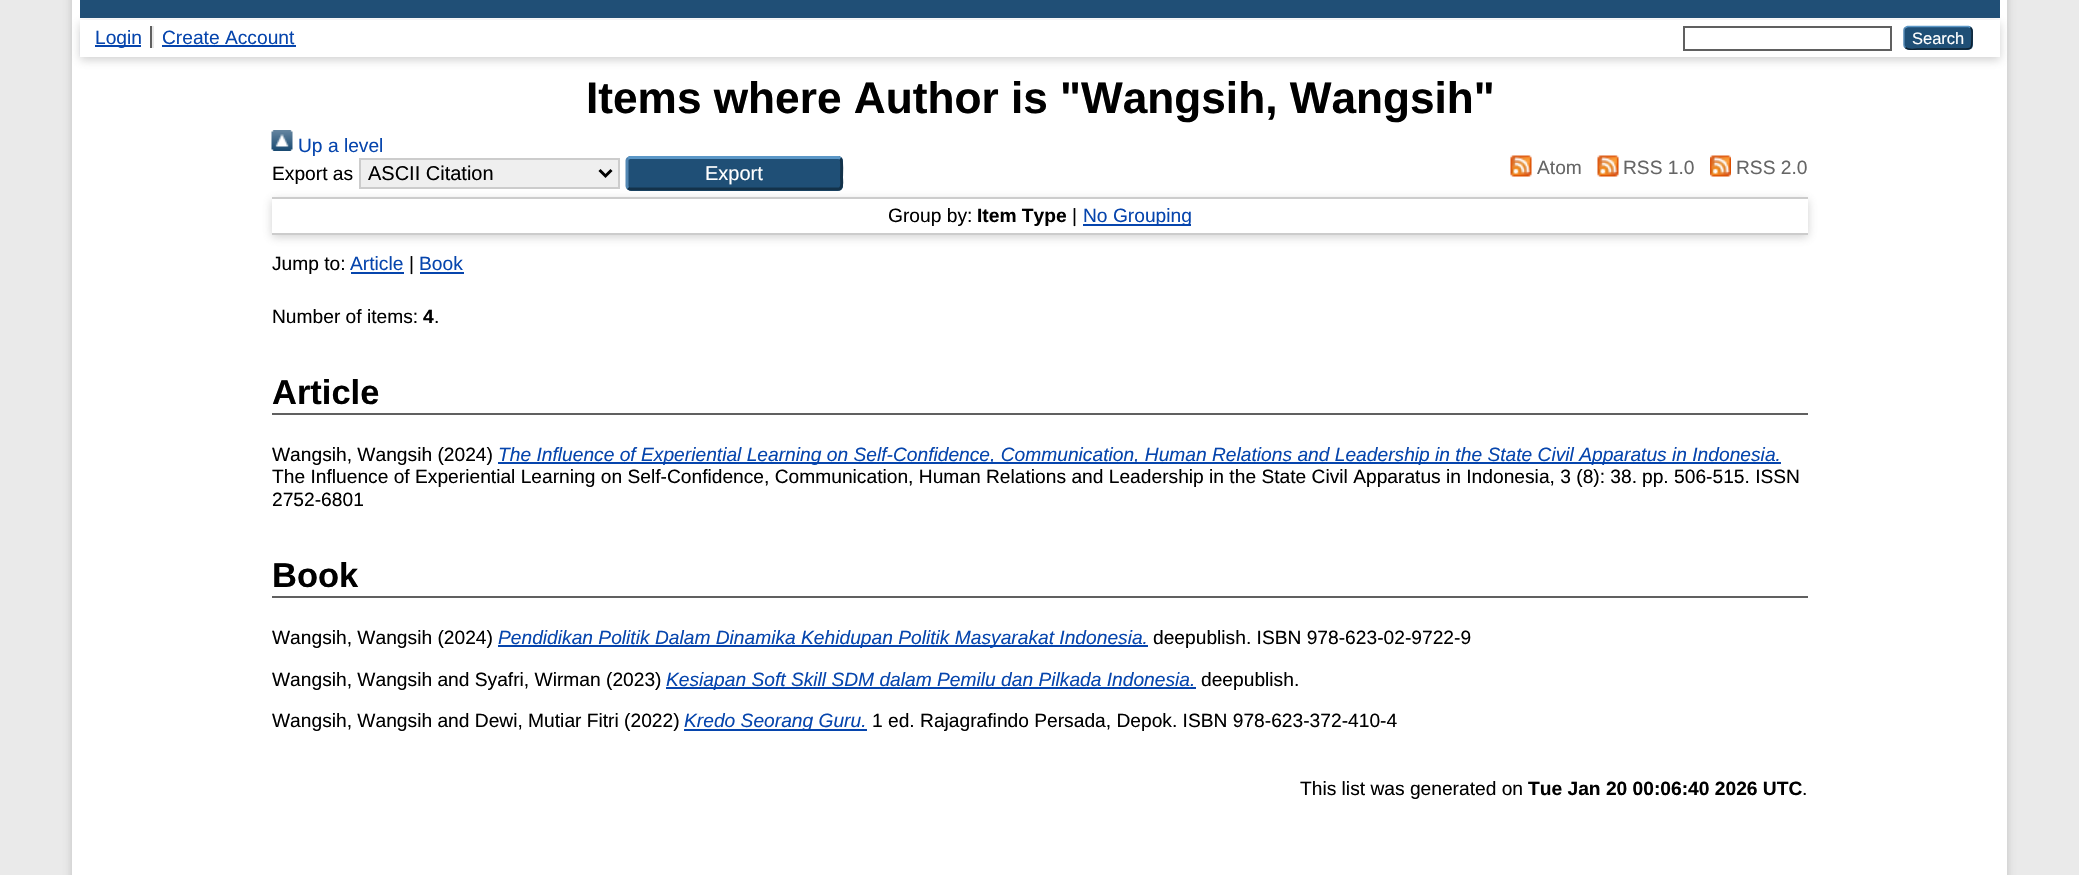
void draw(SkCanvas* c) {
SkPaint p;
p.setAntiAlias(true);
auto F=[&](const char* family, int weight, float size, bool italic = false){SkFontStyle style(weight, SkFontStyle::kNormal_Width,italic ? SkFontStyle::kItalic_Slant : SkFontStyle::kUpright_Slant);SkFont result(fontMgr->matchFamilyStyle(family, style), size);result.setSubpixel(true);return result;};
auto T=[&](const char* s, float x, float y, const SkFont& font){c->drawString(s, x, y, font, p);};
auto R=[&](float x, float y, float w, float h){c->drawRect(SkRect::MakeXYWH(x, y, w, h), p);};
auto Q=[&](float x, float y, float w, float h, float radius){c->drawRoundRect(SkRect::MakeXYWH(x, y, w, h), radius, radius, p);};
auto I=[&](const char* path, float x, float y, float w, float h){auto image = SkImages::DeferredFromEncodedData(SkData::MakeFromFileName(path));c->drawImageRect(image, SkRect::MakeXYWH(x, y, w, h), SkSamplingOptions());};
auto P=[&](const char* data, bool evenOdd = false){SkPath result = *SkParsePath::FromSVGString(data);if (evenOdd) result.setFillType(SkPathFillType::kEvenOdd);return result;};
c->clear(0xffeaeaea);
p.setColor(0x4d646464);
p.setMaskFilter(SkMaskFilter::MakeBlur(kNormal_SkBlurStyle, 4.5));
c->drawRect(SkRect::MakeXYWH(72,-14,1935,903),p);
p.setMaskFilter(nullptr);
p.setColor(0xffffffff);
R(72,0,1935,875);
I("1.png",79,32,1,24);
p.setColor(0xff204f76);
R(80,0,1920,18);
p.setColor(0x4d646464);
p.setMaskFilter(SkMaskFilter::MakeBlur(kNormal_SkBlurStyle, 4.5));
c->drawRect(SkRect::MakeXYWH(80,23,1920,37),p);
p.setMaskFilter(nullptr);
p.setColor(0xffffffff);
R(80,20,1920,37);
p.setColor(0xff0645ad);
R(95,45,46,2);
auto f1 = F("Liberation Sans",400,19.2);
T("Login",95,44,f1);
p.setColor(0xff606060);
R(150,26,2,22);
p.setColor(0xff0645ad);
T("Create Account",162,44,f1);
p.setColor(0xffe8e8e8);
R(152,26,2,22);
p.setColor(0xff0645ad);
R(162,45,134,2);
p.setStroke(true);
p.setStrokeWidth(2);
p.setColor(0xff606060);
c->drawRect(SkRect::MakeXYWH(1684,27,207,23),p);
p.setStroke(false);
p.setColor(0xff1f4f76);
Q(1904,26,69,24,5);
p.setStroke(true);
p.setStrokeWidth(1.5);
p.setColor(0xff5b97c7);
c->drawPath(P("M1905.5 27.5l2-1h61l2 1"),p);
p.setColor(0xff0d2131);
c->drawPath(P("M1970.5 27.5c2.5 2 1.5 7 1.5 10c0 13 0 11.5-14 11.5h-40c-.5 0-10 1.5-12.5-1.5"),p);
p.setColor(0xff5287b3);
c->drawPath(P("M1905.5 47.5c-1-.5-1.5-1.5-1.5-2.5v-15c0-1 .5-2 1.5-2.5"),p);
auto f2 = F("Liberation Sans",400,16.5);
p.setStroke(false);
p.setColor(0xffffffff);
T("Search",1912,44,f2);
auto f3 = F("Liberation Sans",700,44.2);
p.setColor(0xff000000);
T("Items where Author is \"Wangsih, Wangsih\"",586,113,f3);
I("2.png",271,130,22,21);
p.setColor(0xff0645ad);
T("Up a level",298,152,f1);
p.setColor(0xff000000);
T("Export as",272,180,f1);
p.setColor(0x4d646464);
p.setMaskFilter(SkMaskFilter::MakeBlur(kNormal_SkBlurStyle, 4.5));
c->drawRect(SkRect::MakeXYWH(272,200,1536,37),p);
p.setMaskFilter(nullptr);
p.setColor(0xffefefef);
c->drawRect(SkRect::MakeXYWH(360,159,259,29),p);
p.setStroke(true);
p.setStrokeWidth(2);
p.setColor(0xffcccccc);
c->drawRect(SkRect::MakeXYWH(360,159,259,29),p);
p.setStrokeWidth(3);
p.setColor(0xff000000);
c->drawPath(P("M599.5 170l6 6l6-6"),p);
auto f4 = F("Liberation Sans",400,20);
p.setStroke(false);
T("ASCII Citation",368,180,f4);
p.setColor(0xff1f4f76);
Q(626,156,217,35,5);
p.setStroke(true);
p.setColor(0xff5b97c7);
c->drawPath(P("M628 158.5l2-1h208.5l2 1"),p);
p.setColor(0xff13324a);
c->drawPath(P("M840.5 158.5c2 2 1 15.5 1 19c0 2 1.5 10-2 11.5h-209.5l-2-1"),p);
p.setColor(0xff5287b3);
c->drawPath(P("M628 188c-.5-.5-1-1-1-2v-25.5c0-1 .5-1.5 1-2"),p);
p.setStroke(false);
p.setColor(0xffffffff);
T("Export",705,180,f4);
I("3.png",1510,155,22,22);
p.setColor(0xff666666);
T("Atom",1537,174,f1);
I("4.png",1597,155,22,22);
T("RSS 1.0",1623,174,f1);
I("5.png",1710,155,21,22);
T("RSS 2.0",1736,174,f1);
p.setColor(0xffffffff);
R(272,199,1536,34);
p.setColor(0xffcccccc);
R(272,197,1536,2);
R(272,233,1536,2);
p.setColor(0xff000000);
T("Group by:",888,222,f1);
auto f5 = F("Liberation Sans",700,19.2);
T("Item Type",977,222,f5);
T("|",1072,222,f1);
p.setColor(0xff0645ad);
R(1083,224,108,2);
T("No Grouping",1083,222,f1);
p.setColor(0xff000000);
T("Jump to:",272,270,f1);
p.setColor(0xff0645ad);
T("Article",350,270,f1);
R(351,272,53,2);
p.setColor(0xff000000);
T("|",409,270,f1);
p.setColor(0xff0645ad);
T("Book",419,270,f1);
R(420,272,44,2);
p.setColor(0xff000000);
T("Number of items:",272,323,f1);
T("4",423,323,f5);
T(".",434,323,f1);
p.setColor(0xff606060);
R(272,413,1536,2);
auto f6 = F("Liberation Sans",700,34.5);
p.setColor(0xff000000);
T("Article",272,404,f6);
T("Wangsih, Wangsih (2024)",272,461,f1);
p.setColor(0xff0645ad);
R(498,462,1283,2);
auto f7 = F("Liberation Sans",400,19.2,true);
T("The Influence of Experiential Learning on Self-Confidence, Communication, Human Relations and Leadership in the State Civil Apparatus in Indonesia.",498,461,f7);
p.setColor(0xff000000);
T("The Influence of Experiential Learning on Self-Confidence, Communication, Human Relations and Leadership in the State Civil Apparatus in Indonesia, 3 (8): 38.",272,483,f1);
T("pp. 506-515. ISSN",1642,483,f1);
T("2752-6801",272,506,f1);
p.setColor(0xff606060);
R(272,596,1536,2);
p.setColor(0xff000000);
T("Book",272,587,f6);
T("Wangsih, Wangsih (2024)",272,644,f1);
p.setColor(0xff0645ad);
R(498,645,650,2);
T("Pendidikan Politik Dalam Dinamika Kehidupan Politik Masyarakat Indonesia.",498,644,f7);
p.setColor(0xff000000);
T("deepublish. ISBN 978-623-02-9722-9",1153,644,f1);
T("Wangsih, Wangsih and Syafri, Wirman (2023)",272,686,f1);
p.setColor(0xff0645ad);
R(666,687,530,2);
T("Kesiapan Soft Skill SDM dalam Pemilu dan Pilkada Indonesia.",666,686,f7);
p.setColor(0xff000000);
T("deepublish.",1201,686,f1);
T("Wangsih, Wangsih and Dewi, Mutiar Fitri (2022)",272,727,f1);
p.setColor(0xff0645ad);
R(684,729,183,2);
T("Kredo Seorang Guru.",684,727,f7);
p.setColor(0xff000000);
T("1 ed. Rajagrafindo Persada, Depok. ISBN 978-623-372-410-4",872,727,f1);
T("This list was generated on",1300,795,f1);
T("Tue Jan 20 00:06:40 2026 UTC",1528,795,f5);
T(".",1802,795,f1);
}
